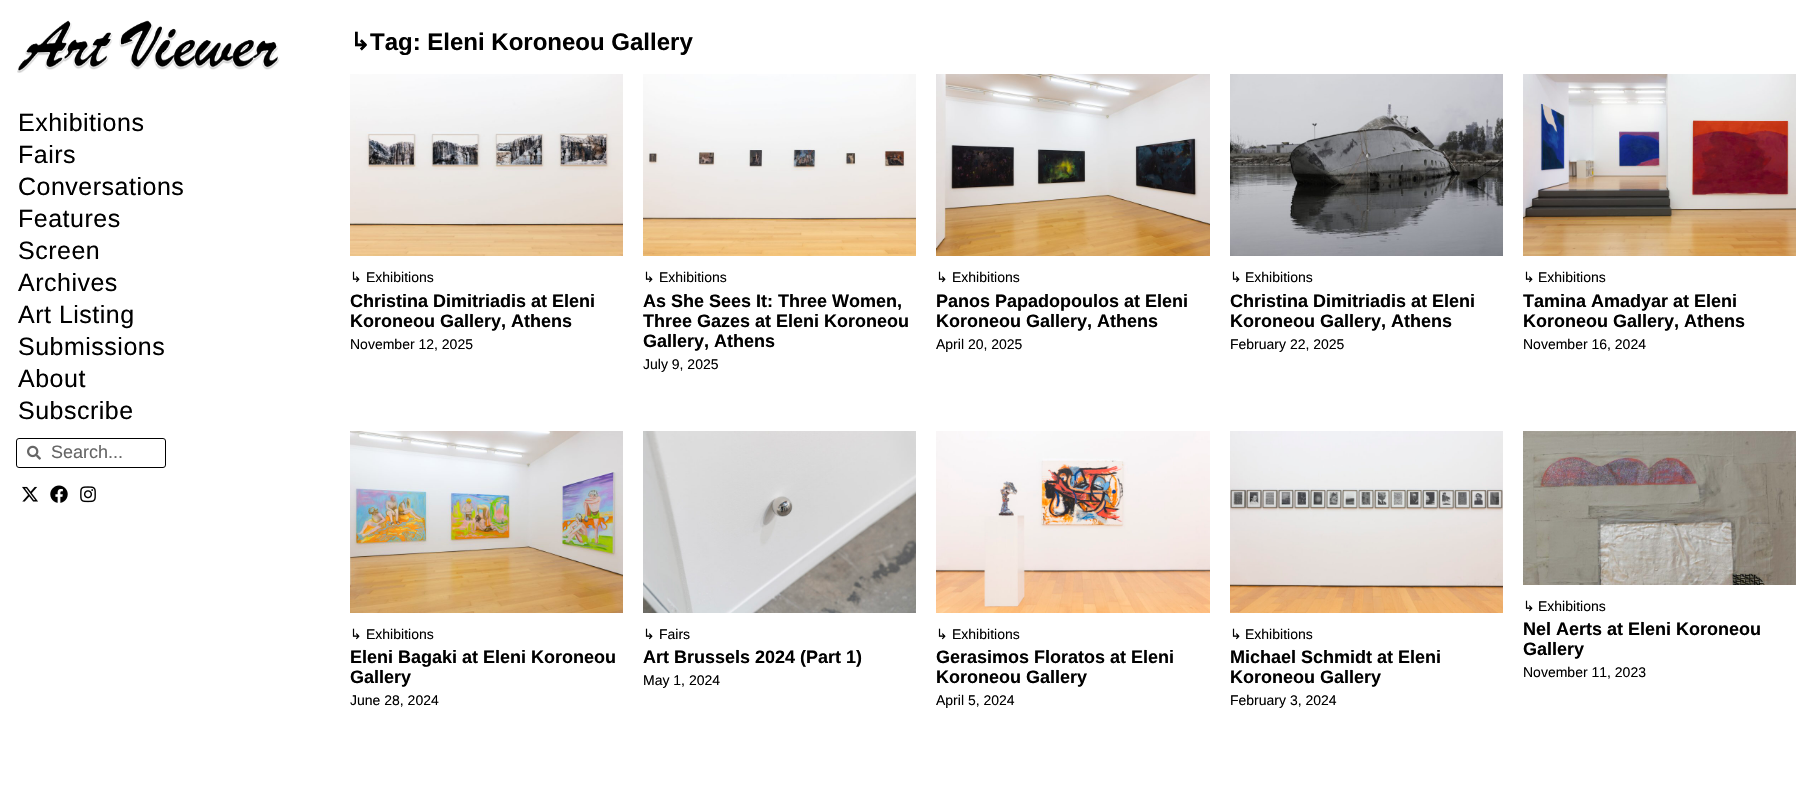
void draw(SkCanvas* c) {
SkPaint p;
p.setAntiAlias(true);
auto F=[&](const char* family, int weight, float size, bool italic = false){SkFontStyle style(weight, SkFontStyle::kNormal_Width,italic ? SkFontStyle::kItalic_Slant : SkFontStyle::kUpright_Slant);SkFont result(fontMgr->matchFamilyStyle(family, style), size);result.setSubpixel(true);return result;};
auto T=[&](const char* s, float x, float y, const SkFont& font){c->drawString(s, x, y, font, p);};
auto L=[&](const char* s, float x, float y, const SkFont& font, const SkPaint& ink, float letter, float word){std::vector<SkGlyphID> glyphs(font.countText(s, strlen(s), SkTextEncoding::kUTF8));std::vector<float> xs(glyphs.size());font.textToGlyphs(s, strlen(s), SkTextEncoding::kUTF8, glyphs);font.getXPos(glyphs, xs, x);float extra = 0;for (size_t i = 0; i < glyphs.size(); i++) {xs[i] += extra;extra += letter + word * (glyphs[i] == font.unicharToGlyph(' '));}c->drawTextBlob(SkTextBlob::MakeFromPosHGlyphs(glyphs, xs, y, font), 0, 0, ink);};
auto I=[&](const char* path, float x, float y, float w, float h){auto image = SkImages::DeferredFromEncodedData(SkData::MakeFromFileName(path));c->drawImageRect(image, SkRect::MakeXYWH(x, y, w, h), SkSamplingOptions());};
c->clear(0xffffffff);
I("1.png",17,20,263,53);
auto f1 = F("Liberation Sans",400,25);
p.setColor(0xff000000);
L("Exhibitions",18,131,f1,p,.5,0);
L("Fairs",18,163,f1,p,.5,0);
L("Conversations",18,195,f1,p,.5,0);
L("Features",18,227,f1,p,.5,0);
L("Screen",18,259,f1,p,.5,0);
L("Archives",18,291,f1,p,.5,0);
L("Art Listing",18,323,f1,p,.5,0);
L("Submissions",18,355,f1,p,.5,0);
L("About",18,387,f1,p,.5,0);
L("Subscribe",18,419,f1,p,.5,0);
p.setStroke(true);
p.setStrokeWidth(1);
c->drawRoundRect(SkRect::MakeXYWH(16.5,438.5,149,29),2.5,2.5,p);
I("2.png",27,445,14,15);
auto f2 = F("Liberation Sans",400,18);
p.setStroke(false);
p.setColor(0xff666666);
T("Search...",51,458,f2);
I("3.png",22,486,16,16);
I("4.png",50,485,18,18);
I("5.png",80,486,16,17);
auto f3 = F("DejaVu Sans",700,24);
p.setColor(0xff000000);
T("↳",350,50,f3);
auto f4 = F("Liberation Sans",700,24);
T("Tag: Eleni Koroneou Gallery",370,50,f4);
I("6.png",350,74,273,182);
auto f5 = F("DejaVu Sans",400,14);
T("↳",350,282,f5);
auto f6 = F("Liberation Sans",400,14);
T("Exhibitions",366,282,f6);
auto f7 = F("Liberation Sans",700,18);
T("Christina Dimitriadis at Eleni",350,307,f7);
T("Koroneou Gallery, Athens",350,327,f7);
T("November 12, 2025",350,349,f6);
I("7.png",643,74,273,182);
T("↳",643,282,f5);
T("Exhibitions",659,282,f6);
T("As She Sees It: Three Women,",643,307,f7);
T("Three Gazes at Eleni Koroneou",643,327,f7);
T("Gallery, Athens",643,347,f7);
T("July 9, 2025",643,369,f6);
I("8.png",936,74,274,182);
T("↳",936,282,f5);
T("Exhibitions",952,282,f6);
T("Panos Papadopoulos at Eleni",936,307,f7);
T("Koroneou Gallery, Athens",936,327,f7);
T("April 20, 2025",936,349,f6);
I("9.png",1230,74,273,182);
T("↳",1230,282,f5);
T("Exhibitions",1245,282,f6);
T("Christina Dimitriadis at Eleni",1230,307,f7);
T("Koroneou Gallery, Athens",1230,327,f7);
T("February 22, 2025",1230,349,f6);
I("10.png",1523,74,273,182);
T("↳",1523,282,f5);
T("Exhibitions",1538,282,f6);
T("Tamina Amadyar at Eleni",1523,307,f7);
T("Koroneou Gallery, Athens",1523,327,f7);
T("November 16, 2024",1523,349,f6);
I("11.png",350,431,273,182);
T("↳",350,639,f5);
T("Exhibitions",366,639,f6);
T("Eleni Bagaki at Eleni Koroneou",350,663,f7);
T("Gallery",350,683,f7);
T("June 28, 2024",350,705,f6);
I("12.png",643,431,273,182);
T("↳",643,639,f5);
T("Fairs",659,639,f6);
T("Art Brussels 2024 (Part 1)",643,663,f7);
T("May 1, 2024",643,685,f6);
I("13.png",936,431,274,182);
T("↳",936,639,f5);
T("Exhibitions",952,639,f6);
T("Gerasimos Floratos at Eleni",936,663,f7);
T("Koroneou Gallery",936,683,f7);
T("April 5, 2024",936,705,f6);
I("14.png",1230,431,273,182);
T("↳",1230,639,f5);
T("Exhibitions",1245,639,f6);
T("Michael Schmidt at Eleni",1230,663,f7);
T("Koroneou Gallery",1230,683,f7);
T("February 3, 2024",1230,705,f6);
I("15.png",1523,431,273,154);
T("↳",1523,611,f5);
T("Exhibitions",1538,611,f6);
T("Nel Aerts at Eleni Koroneou",1523,635,f7);
T("Gallery",1523,655,f7);
T("November 11, 2023",1523,677,f6);
}
